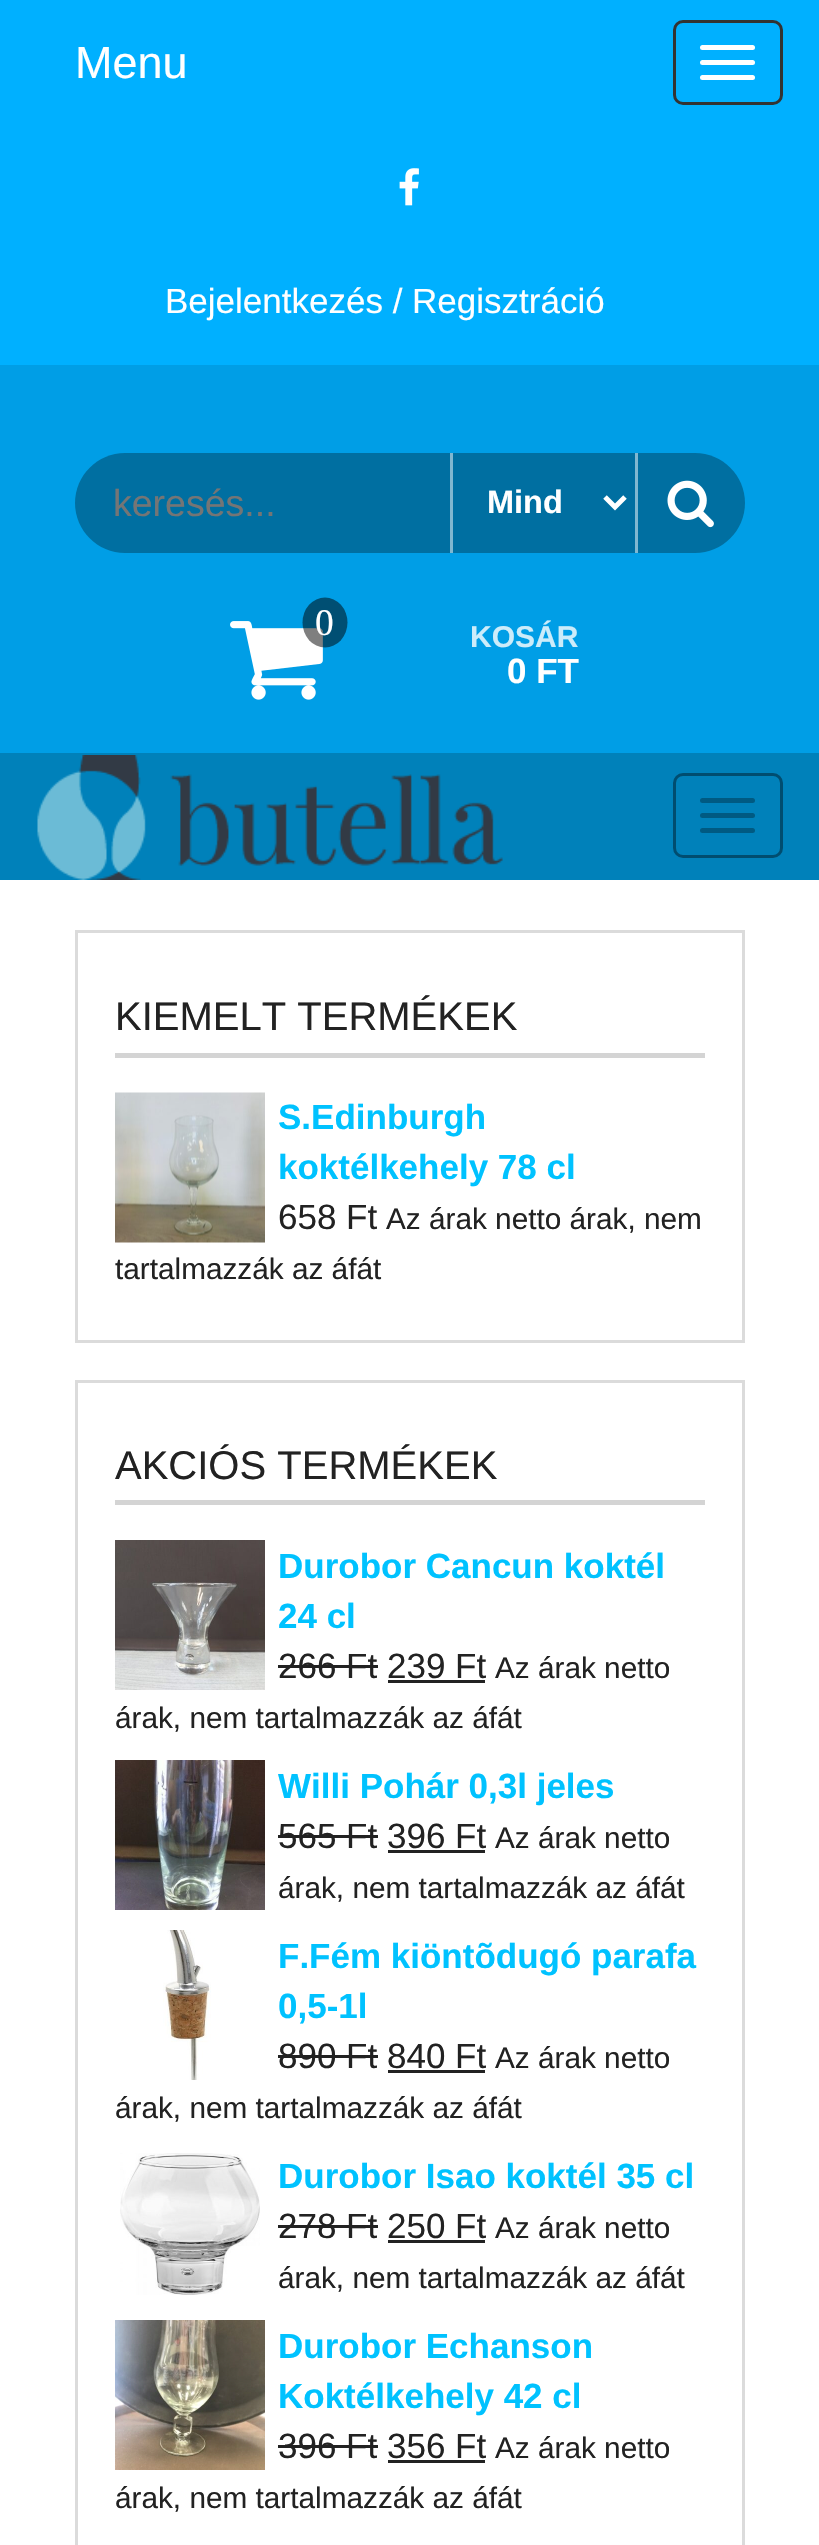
void draw(SkCanvas* c) {
SkPaint p;
p.setAntiAlias(true);
auto F=[&](const char* family, int weight, float size, bool italic = false){SkFontStyle style(weight, SkFontStyle::kNormal_Width,italic ? SkFontStyle::kItalic_Slant : SkFontStyle::kUpright_Slant);SkFont result(fontMgr->matchFamilyStyle(family, style), size);result.setSubpixel(true);return result;};
auto T=[&](const char* s, float x, float y, const SkFont& font){c->drawString(s, x, y, font, p);};
auto R=[&](float x, float y, float w, float h){c->drawRect(SkRect::MakeXYWH(x, y, w, h), p);};
auto Q=[&](float x, float y, float w, float h, float radius){c->drawRoundRect(SkRect::MakeXYWH(x, y, w, h), radius, radius, p);};
auto I=[&](const char* path, float x, float y, float w, float h){auto image = SkImages::DeferredFromEncodedData(SkData::MakeFromFileName(path));c->drawImageRect(image, SkRect::MakeXYWH(x, y, w, h), SkSamplingOptions());};
auto P=[&](const char* data, bool evenOdd = false){SkPath result = *SkParsePath::FromSVGString(data);if (evenOdd) result.setFillType(SkPathFillType::kEvenOdd);return result;};
c->clear(0xffffffff);
p.setColor(0xff00b0ff);
R(0,0,819,365);
auto f1 = F("Liberation Sans",400,45);
p.setColor(0xffffffff);
T("Menu",75,78,f1);
p.setStroke(true);
p.setStrokeWidth(3);
p.setColor(0xff333333);
c->drawRoundRect(SkRect::MakeXYWH(674.5,21.5,107,82),8.5,8.5,p);
p.setStroke(false);
p.setColor(0xffffffff);
Q(700,45,55,5,2.5);
Q(700,60,55,5,2.5);
Q(700,75,55,5,2.5);
I("1.png",399,168,20,38);
auto f2 = F("Liberation Sans",400,35);
T("Bejelentkezés / Regisztráció",165,313,f2);
p.setColor(0xff009ee6);
R(0,365,819,388);
p.setColor(0xff006fa1);
c->drawPath(P("M125 453h325v100h-325c-27.5 0-50-22.5-50-50c0-27.5 22.5-50 50-50z"),p);
auto f3 = F("Liberation Sans",400,37.5);
p.setColor(0xff757575);
T("keresés...",113,516,f3);
p.setColor(0xff006fa1);
R(453,453,182,100);
p.setColor(0xff80b7d0);
R(635,453,3,100);
R(450,453,3,100);
p.setStroke(true);
p.setStrokeWidth(5);
p.setColor(0xffffffff);
c->drawPath(P("M605 497l10 10l10-10"),p);
auto f4 = F("Liberation Sans",700,32.5);
p.setStroke(false);
T("Mind",487,513,f4);
p.setColor(0xff006fa1);
c->drawPath(P("M638 453h57c27.5 0 50 22.5 50 50c0 27.5-22.5 50-50 50h-57z"),p);
I("2.png",667,480,47,48);
I("3.png",230,621,93,79);
p.setColor(0x80000000);
c->drawOval(SkRect::MakeXYWH(302.5,597.5,45,50),p);
auto f5 = F("Liberation Serif",400,37.5);
p.setColor(0xffffffff);
T("0",315,635,f5);
auto f6 = F("Liberation Sans",700,30);
p.setColor(0xffccecfa);
T("KOSÁR",470,647,f6);
auto f7 = F("Liberation Sans",700,35);
p.setColor(0xffffffff);
T("0 FT",507,683,f7);
p.setColor(0xff0081ba);
R(0,753,819,127);
I("4.png",37,755,466,125);
p.setStroke(true);
p.setStrokeWidth(3);
p.setColor(0xff004d70);
c->drawRoundRect(SkRect::MakeXYWH(674.5,774.5,107,82),8.5,8.5,p);
p.setStroke(false);
p.setColor(0xff005a82);
Q(700,798,55,5,2.5);
Q(700,813,55,5,2.5);
Q(700,828,55,5,2.5);
p.setStroke(true);
p.setColor(0xffdbdbdb);
c->drawRect(SkRect::MakeXYWH(76.5,931.5,667,410),p);
p.setStroke(false);
p.setColor(0xffd4d4d4);
R(115,1053,590,5);
auto f8 = F("Liberation Sans",400,40);
p.setColor(0xff222222);
T("KIEMELT TERMÉKEK",115,1030,f8);
I("5.png",115,1092,150,151);
p.setColor(0xff00c2ff);
T("S.Edinburgh",278,1129,f7);
T("koktélkehely 78 cl",278,1179,f7);
p.setColor(0xff222222);
T("658 Ft",278,1229,f2);
auto f9 = F("Liberation Sans",400,29.75);
T("Az árak netto árak, nem",386,1229,f9);
T("tartalmazzák az áfát",115,1279,f9);
p.setStroke(true);
p.setColor(0xffdbdbdb);
c->drawRect(SkRect::MakeXYWH(76.5,1381.5,667,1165),p);
p.setStroke(false);
p.setColor(0xffd4d4d4);
R(115,1500,590,5);
p.setColor(0xff222222);
T("AKCIÓS TERMÉKEK",115,1479,f8);
I("6.png",115,1540,150,150);
p.setColor(0xff00c2ff);
T("Durobor Cancun koktél",278,1578,f7);
T("24 cl",278,1628,f7);
p.setColor(0xff222222);
T("266 Ft 239 Ft",278,1678,f2);
R(278,1665,100,3);
T("Az árak netto",495,1678,f9);
R(388,1680,97,3);
T("árak, nem tartalmazzák az áfát",115,1728,f9);
I("7.png",115,1760,150,150);
p.setColor(0xff00c2ff);
T("Willi Pohár 0,3l jeles",278,1798,f7);
p.setColor(0xff222222);
T("565 Ft 396 Ft",278,1848,f2);
R(278,1835,100,3);
T("Az árak netto",495,1848,f9);
R(388,1850,97,3);
T("árak, nem tartalmazzák az áfát",278,1898,f9);
I("8.png",163,1930,48,150);
p.setColor(0xff00c2ff);
T("F.Fém kiöntõdugó parafa",278,1968,f7);
T("0,5-1l",278,2018,f7);
p.setColor(0xff222222);
T("890 Ft 840 Ft",278,2068,f2);
R(278,2055,100,3);
T("Az árak netto",495,2068,f9);
R(388,2070,97,3);
T("árak, nem tartalmazzák az áfát",115,2118,f9);
I("9.png",120,2153,140,142);
p.setColor(0xff00c2ff);
T("Durobor Isao koktél 35 cl",278,2188,f7);
p.setColor(0xff222222);
T("278 Ft 250 Ft",278,2238,f2);
R(278,2225,100,3);
T("Az árak netto",495,2238,f9);
R(388,2240,97,3);
T("árak, nem tartalmazzák az áfát",278,2288,f9);
I("10.png",115,2320,150,150);
p.setColor(0xff00c2ff);
T("Durobor Echanson",278,2358,f7);
T("Koktélkehely 42 cl",278,2408,f7);
p.setColor(0xff222222);
T("396 Ft 356 Ft",278,2458,f2);
R(278,2445,100,3);
T("Az árak netto",495,2458,f9);
R(388,2460,97,3);
T("árak, nem tartalmazzák az áfát",115,2508,f9);
}
